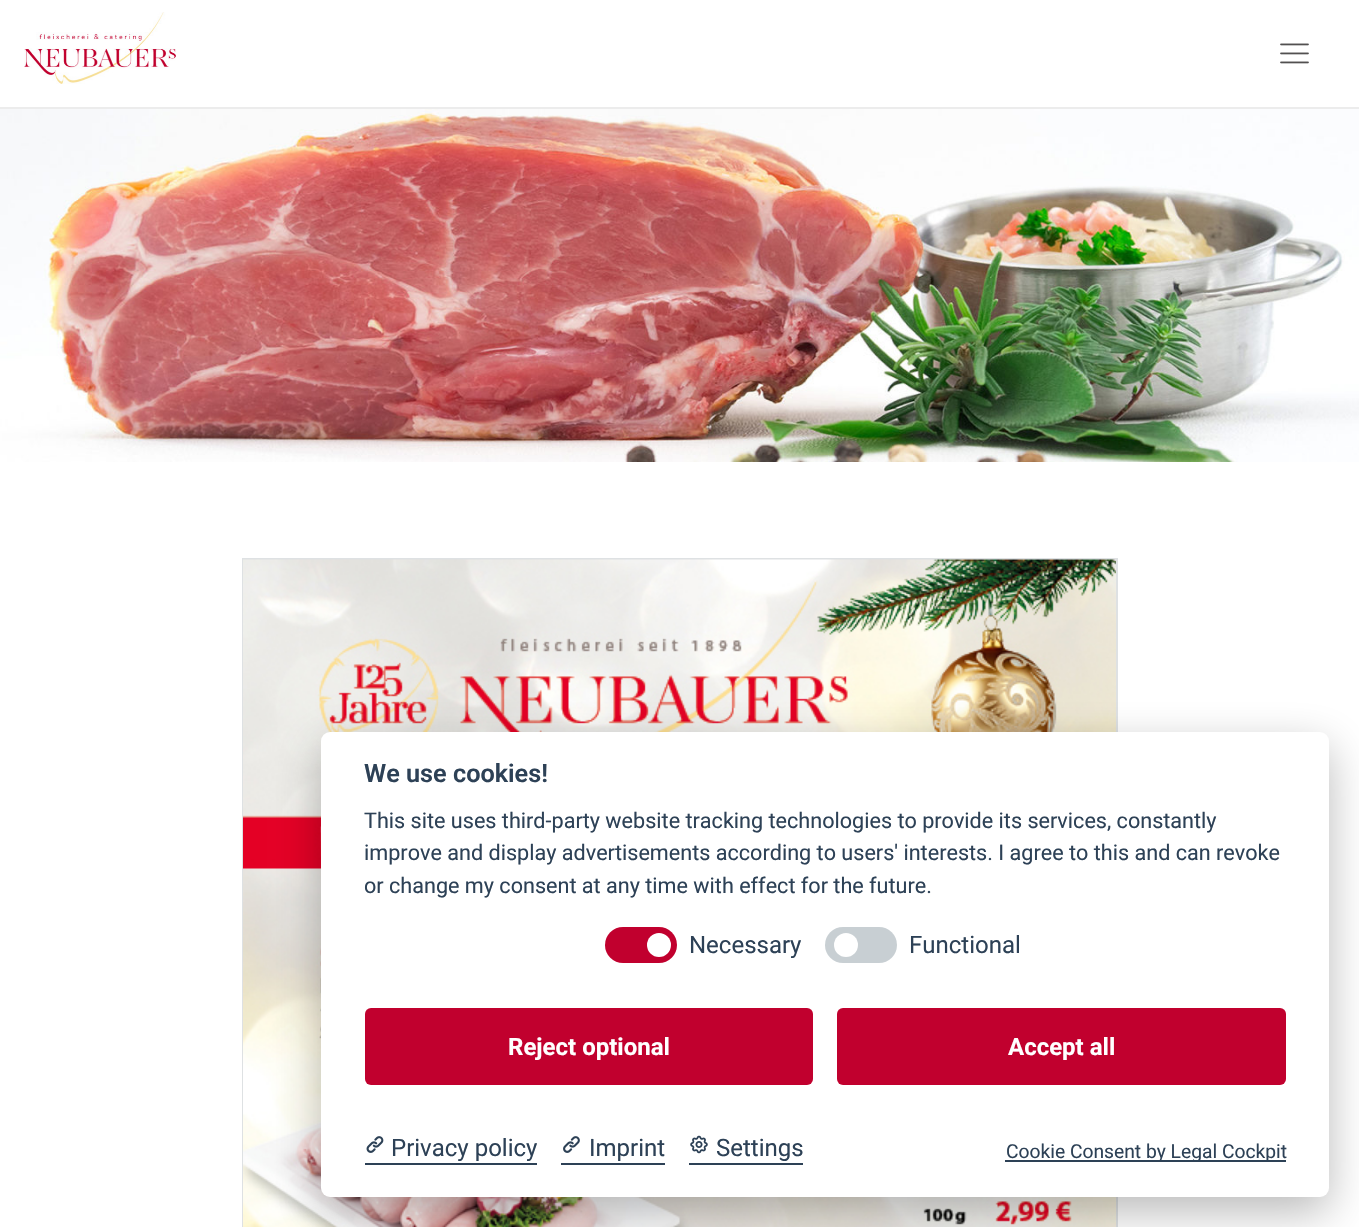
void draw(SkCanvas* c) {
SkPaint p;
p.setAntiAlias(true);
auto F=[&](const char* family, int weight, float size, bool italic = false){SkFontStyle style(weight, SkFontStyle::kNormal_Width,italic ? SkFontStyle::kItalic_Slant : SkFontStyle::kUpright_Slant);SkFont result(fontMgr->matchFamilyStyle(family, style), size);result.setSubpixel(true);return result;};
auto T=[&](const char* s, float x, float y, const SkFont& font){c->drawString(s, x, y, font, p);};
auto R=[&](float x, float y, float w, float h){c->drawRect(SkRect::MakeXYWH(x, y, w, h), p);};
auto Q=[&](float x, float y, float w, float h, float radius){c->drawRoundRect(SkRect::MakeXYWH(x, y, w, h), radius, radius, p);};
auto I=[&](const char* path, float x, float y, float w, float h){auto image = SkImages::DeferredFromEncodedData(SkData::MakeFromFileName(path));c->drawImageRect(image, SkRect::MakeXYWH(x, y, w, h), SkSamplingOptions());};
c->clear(0xffffffff);
p.setColor(0xffececec);
R(0,107,1359,2);
I("1.png",24,12,152,72);
I("2.png",1280,43,29,21);
I("3.png",0,109,1359,353);
p.setStroke(true);
p.setStrokeWidth(2);
p.setColor(0xffdee1e3);
c->drawRect(SkRect::MakeXYWH(243,559,874,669),p);
I("4.png",243,559,873,668);
p.setStroke(false);
p.setColor(0x47020203);
p.setMaskFilter(SkMaskFilter::MakeBlur(kNormal_SkBlurStyle, 22.5));
c->drawRoundRect(SkRect::MakeXYWH(321,747,1008,465),9,9,p);
p.setMaskFilter(nullptr);
p.setColor(0xffffffff);
Q(321,732,1008,465,9);
auto f1 = F("Roboto",600,25.25);
p.setColor(0xff2d4156);
T("We use cookies!",364,782,f1);
auto f2 = F("Roboto",400,21.6);
T("This site uses third-party website tracking technologies to provide its services, constantly",364,828,f2);
T("improve and display advertisements according to users' interests. I agree to this and can revoke",364,860,f2);
T("or change my consent at any time with effect for the future.",364,893,f2);
p.setColor(0xffc1002e);
Q(605,927,72,36,18);
p.setColor(0xffffffff);
c->drawCircle(659,945,12,p);
auto f3 = F("Roboto",400,24);
p.setColor(0xff2d4156);
T("Necessary",689,953,f3);
p.setColor(0xffc8cfd3);
Q(825,927,72,36,18);
p.setColor(0xffffffff);
c->drawCircle(846,945,12,p);
p.setColor(0xff2d4156);
T("Functional",909,953,f3);
p.setColor(0xffc1002e);
Q(365,1008,448,77,6);
auto f4 = F("Roboto",700,24);
p.setColor(0xffffffff);
T("Reject optional",508,1055,f4);
p.setColor(0xffc1002e);
Q(837,1008,449,77,6);
p.setColor(0xffffffff);
T("Accept all",1008,1055,f4);
p.setColor(0xff2d4156);
R(365,1163,172,2);
I("5.png",366,1136,18,17);
T("Privacy policy",391,1156,f3);
R(561,1163,104,2);
I("6.png",563,1136,17,17);
T("Imprint",589,1156,f3);
R(689,1163,114,2);
I("7.png",690,1135,18,19);
T("Settings",716,1156,f3);
R(1005,1160,281,2);
auto f5 = F("Roboto",400,19.25);
T("Cookie Consent by Legal Cockpit",1006,1158,f5);
}
